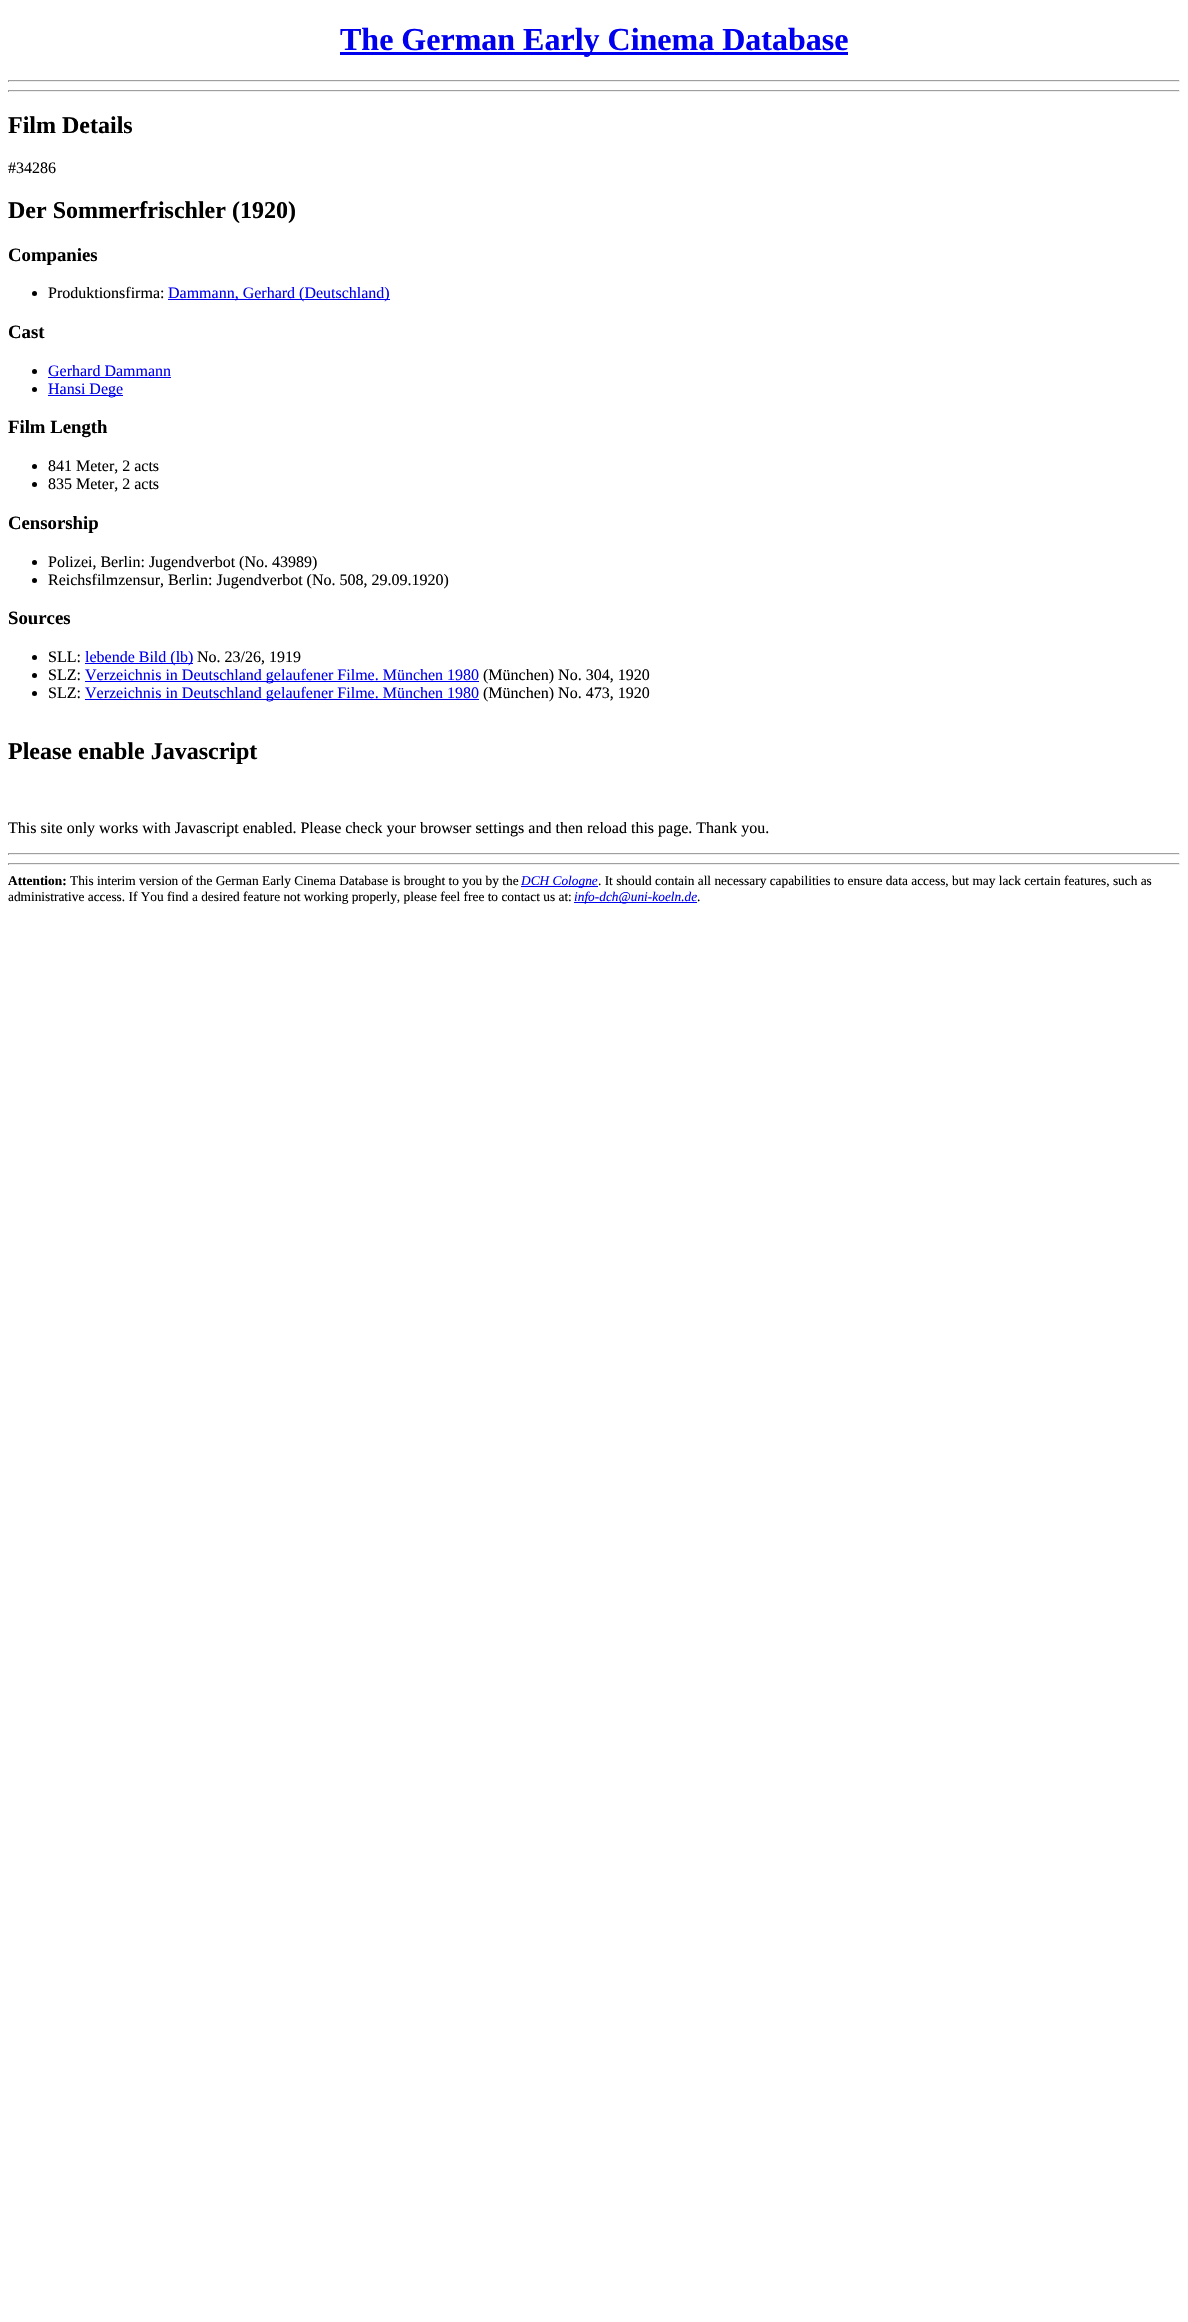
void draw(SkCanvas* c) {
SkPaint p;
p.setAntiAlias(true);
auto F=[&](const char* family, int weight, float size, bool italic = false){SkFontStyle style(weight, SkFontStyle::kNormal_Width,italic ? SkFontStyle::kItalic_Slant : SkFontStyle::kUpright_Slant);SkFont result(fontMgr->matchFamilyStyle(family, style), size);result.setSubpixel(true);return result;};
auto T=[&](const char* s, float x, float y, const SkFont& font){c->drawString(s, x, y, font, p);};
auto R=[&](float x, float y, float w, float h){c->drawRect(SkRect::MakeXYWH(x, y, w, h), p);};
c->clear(0xffffffff);
p.setColor(0xff0000ee);
R(340,52,508,3);
auto f1 = F("Liberation Serif",700,32);
T("The German Early Cinema Database",340,50,f1);
p.setColor(0xff9f9f9f);
R(8,80,1172,1);
p.setColor(0xffeeeeee);
R(1179,80,1,2);
R(8,81,1172,1);
p.setColor(0xff9f9f9f);
R(8,80,1,2);
R(8,90,1172,1);
p.setColor(0xffeeeeee);
R(1179,90,1,2);
R(8,91,1172,1);
p.setColor(0xff9f9f9f);
R(8,90,1,2);
auto f2 = F("Liberation Serif",700,24);
p.setColor(0xff000000);
T("Film Details",8,133,f2);
auto f3 = F("Liberation Serif",400,16);
T("#34286",8,173,f3);
T("Der Sommerfrischler (1920)",8,218,f2);
auto f4 = F("Liberation Serif",700,18.75);
T("Companies",8,261,f4);
c->drawCircle(34.5,293.5,2.5,p);
T("Produktionsfirma:",48,298,f3);
p.setColor(0xff0000ee);
R(168,299,222,1);
T("Dammann, Gerhard (Deutschland)",168,298,f3);
p.setColor(0xff000000);
T("Cast",8,338,f4);
c->drawCircle(34.5,371.5,2.5,p);
p.setColor(0xff0000ee);
T("Gerhard Dammann",48,376,f3);
R(48,377,123,1);
p.setColor(0xff000000);
c->drawCircle(34.5,389.5,2.5,p);
p.setColor(0xff0000ee);
R(48,395,75,1);
T("Hansi Dege",48,394,f3);
p.setColor(0xff000000);
T("Film Length",8,433,f4);
c->drawCircle(34.5,466.5,2.5,p);
T("841 Meter, 2 acts",48,471,f3);
c->drawCircle(34.5,484.5,2.5,p);
T("835 Meter, 2 acts",48,489,f3);
T("Censorship",8,529,f4);
c->drawCircle(34.5,562.5,2.5,p);
T("Polizei, Berlin: Jugendverbot (No. 43989)",48,567,f3);
c->drawCircle(34.5,580.5,2.5,p);
T("Reichsfilmzensur, Berlin: Jugendverbot (No. 508, 29.09.1920)",48,585,f3);
T("Sources",8,624,f4);
c->drawCircle(34.5,657.5,2.5,p);
T("SLL:",48,662,f3);
p.setColor(0xff0000ee);
R(85,663,108,1);
T("lebende Bild (lb)",85,662,f3);
p.setColor(0xff000000);
T("No. 23/26, 1919",197,662,f3);
c->drawCircle(34.5,675.5,2.5,p);
T("SLZ:",48,680,f3);
p.setColor(0xff0000ee);
R(85,681,394,1);
T("Verzeichnis in Deutschland gelaufener Filme. München 1980",85,680,f3);
p.setColor(0xff000000);
T("(München) No. 304, 1920",483,680,f3);
c->drawCircle(34.5,693.5,2.5,p);
T("SLZ:",48,698,f3);
p.setColor(0xff0000ee);
R(85,699,394,1);
T("Verzeichnis in Deutschland gelaufener Filme. München 1980",85,698,f3);
p.setColor(0xff000000);
T("(München) No. 473, 1920",483,698,f3);
T("Please enable Javascript",8,759,f2);
T("This site only works with Javascript enabled. Please check your browser settings and then reload this page. Thank you.",8,833,f3);
p.setColor(0xff9f9f9f);
R(8,853,1172,1);
p.setColor(0xffeeeeee);
R(1179,853,1,2);
R(8,854,1172,1);
p.setColor(0xff9f9f9f);
R(8,853,1,2);
R(8,863,1172,1);
p.setColor(0xffeeeeee);
R(1179,863,1,2);
R(8,864,1172,1);
p.setColor(0xff9f9f9f);
R(8,863,1,2);
auto f5 = F("Liberation Serif",700,13.35);
p.setColor(0xff000000);
T("Attention:",8,885,f5);
auto f6 = F("Liberation Serif",400,13.35);
T("This interim version of the German Early Cinema Database is brought to you by the",70,885,f6);
p.setColor(0xff0000ee);
R(521,886,77,1);
auto f7 = F("Liberation Serif",400,13.35,true);
T("DCH Cologne",521,885,f7);
p.setColor(0xff000000);
T(". It should contain all necessary capabilities to ensure data access, but may lack certain features, such as",598,885,f6);
T("administrative access. If You find a desired feature not working properly, please feel free to contact us at:",8,901,f6);
p.setColor(0xff0000ee);
R(574,902,123,1);
T("info-dch@uni-koeln.de",574,901,f7);
p.setColor(0xff000000);
T(".",697,901,f6);
}
